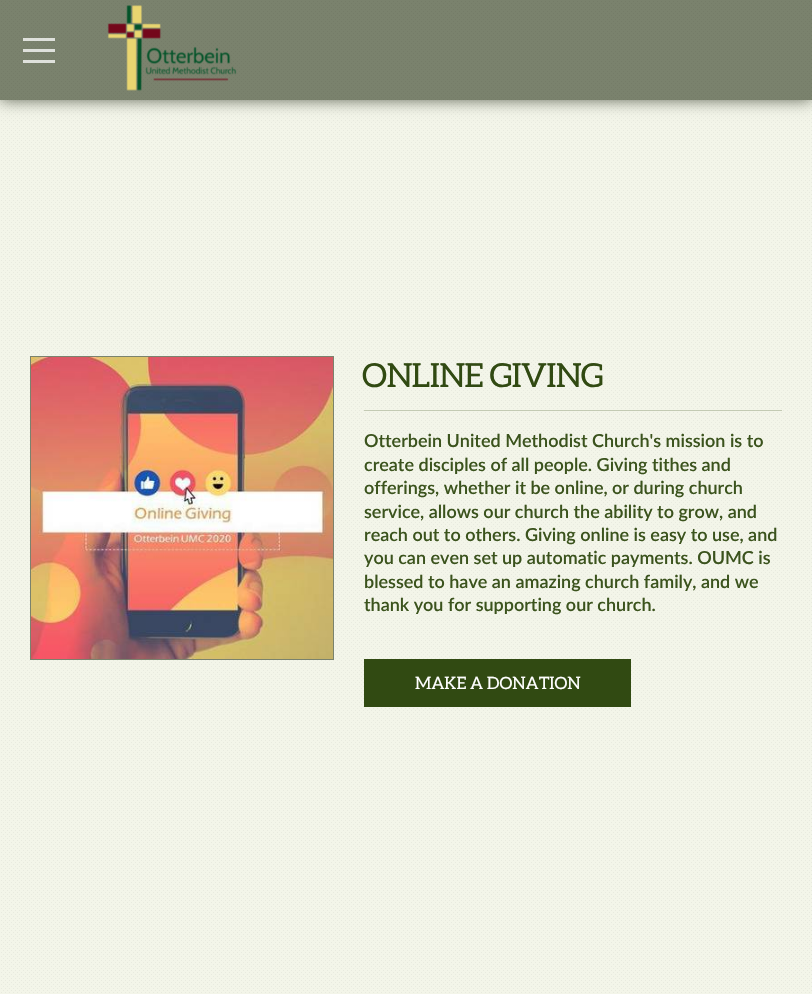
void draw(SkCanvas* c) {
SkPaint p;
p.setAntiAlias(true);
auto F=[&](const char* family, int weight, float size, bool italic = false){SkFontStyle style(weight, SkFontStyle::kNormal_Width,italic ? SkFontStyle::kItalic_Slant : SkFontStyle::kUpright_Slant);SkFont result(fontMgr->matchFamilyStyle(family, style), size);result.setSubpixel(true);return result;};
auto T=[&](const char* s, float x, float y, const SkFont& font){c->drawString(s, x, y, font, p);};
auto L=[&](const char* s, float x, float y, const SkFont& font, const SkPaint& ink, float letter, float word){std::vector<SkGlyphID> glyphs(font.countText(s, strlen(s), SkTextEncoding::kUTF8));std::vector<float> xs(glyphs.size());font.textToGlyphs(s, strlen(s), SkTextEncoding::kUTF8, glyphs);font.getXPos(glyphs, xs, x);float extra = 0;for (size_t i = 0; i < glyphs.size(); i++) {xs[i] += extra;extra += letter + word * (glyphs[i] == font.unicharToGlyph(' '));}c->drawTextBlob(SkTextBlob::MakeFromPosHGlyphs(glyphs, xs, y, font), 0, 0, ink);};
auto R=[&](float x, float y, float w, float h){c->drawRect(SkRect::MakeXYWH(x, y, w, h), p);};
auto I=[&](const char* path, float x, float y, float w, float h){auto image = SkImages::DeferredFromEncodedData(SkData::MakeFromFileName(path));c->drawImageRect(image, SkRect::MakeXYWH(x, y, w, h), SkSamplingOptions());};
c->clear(0xfff3f5e9);
I("3.png",1,100,811,893);
p.setColor(0xff606656);
p.setMaskFilter(SkMaskFilter::MakeBlur(kNormal_SkBlurStyle, 7.5));
c->drawRect(SkRect::MakeXYWH(0,0,812,100),p);
p.setMaskFilter(nullptr);
p.setColor(0xff7a826d);
R(0,0,812,100);
I("1.png",1,1,811,99);
p.setColor(0xccf8f9f8);
R(23,38,32,3);
R(23,49,32,3);
R(23,60,32,3);
I("2.png",107,5,130,86);
p.setStroke(true);
p.setStrokeWidth(1);
p.setColor(0xff7a826d);
c->drawRect(SkRect::MakeXYWH(30.5,356.5,303,303),p);
I("4.png",31,357,302,302);
p.setStroke(false);
p.setColor(0xffc3cab3);
R(364,410,418,1);
auto f1 = F("Aleo",400,33.25);
p.setColor(0xff314a12);
L("ONLINE GIVING",362,387,f1,p,-.7,0);
auto f2 = F("Lato",600,18);
p.setColor(0xff3b531d);
T("Otterbein United Methodist Church's mission is to",364,447,f2);
T("create disciples of all people. Giving tithes and",364,471,f2);
T("offerings, whether it be online, or during church",364,494,f2);
T("service, allows our church the ability to grow, and",364,518,f2);
T("reach out to others. Giving online is easy to use, and",364,541,f2);
T("you can even set up automatic payments. OUMC is",364,564,f2);
T("blessed to have an amazing church family, and we",364,588,f2);
T("thank you for supporting our church.",364,611,f2);
p.setColor(0xff314a12);
R(364,659,267,48);
auto f3 = F("Aleo",400,17);
p.setColor(0xffffffff);
T("MAKE A DONATION",415,689,f3);
}
